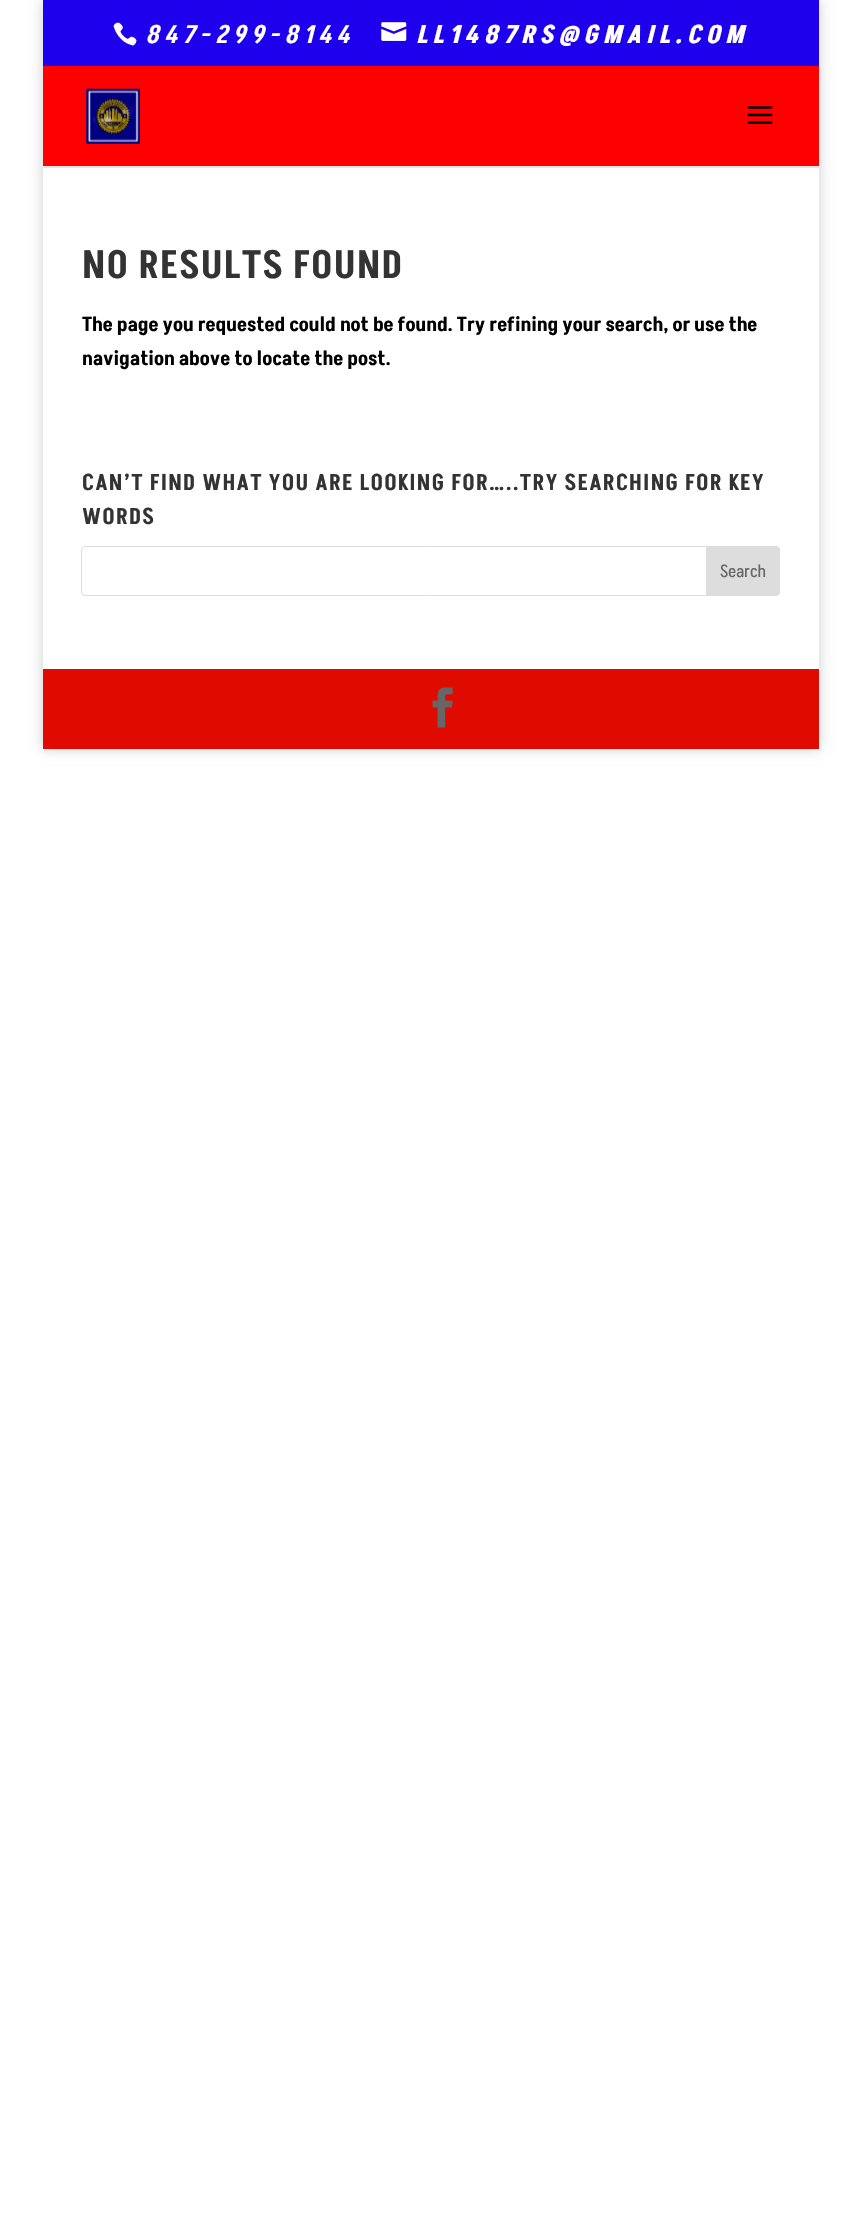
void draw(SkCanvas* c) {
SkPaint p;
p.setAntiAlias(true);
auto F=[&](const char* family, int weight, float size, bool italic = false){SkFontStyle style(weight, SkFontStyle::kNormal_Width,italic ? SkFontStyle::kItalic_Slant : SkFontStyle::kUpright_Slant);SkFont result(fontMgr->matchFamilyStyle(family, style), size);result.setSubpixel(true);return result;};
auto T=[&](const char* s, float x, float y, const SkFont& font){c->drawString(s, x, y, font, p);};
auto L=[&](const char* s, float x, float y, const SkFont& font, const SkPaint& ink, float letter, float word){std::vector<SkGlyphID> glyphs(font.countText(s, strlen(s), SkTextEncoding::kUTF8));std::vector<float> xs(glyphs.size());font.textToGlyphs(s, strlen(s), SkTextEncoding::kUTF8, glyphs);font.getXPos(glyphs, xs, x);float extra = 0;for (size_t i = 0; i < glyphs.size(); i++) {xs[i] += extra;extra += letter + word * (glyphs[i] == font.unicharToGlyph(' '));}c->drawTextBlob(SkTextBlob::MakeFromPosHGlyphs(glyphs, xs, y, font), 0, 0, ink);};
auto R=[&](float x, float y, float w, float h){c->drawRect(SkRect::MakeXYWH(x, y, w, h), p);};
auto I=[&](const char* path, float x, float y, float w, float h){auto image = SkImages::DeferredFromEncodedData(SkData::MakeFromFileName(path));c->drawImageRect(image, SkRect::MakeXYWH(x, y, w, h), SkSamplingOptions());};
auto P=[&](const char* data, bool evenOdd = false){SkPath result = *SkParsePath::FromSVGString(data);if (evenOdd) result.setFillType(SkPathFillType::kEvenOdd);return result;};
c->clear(0xffffffff);
p.setColor(0x33000000);
p.setMaskFilter(SkMaskFilter::MakeBlur(kNormal_SkBlurStyle, 6));
c->drawRect(SkRect::MakeXYWH(43,0,776,749),p);
p.setMaskFilter(nullptr);
p.setColor(0xff1f00ed);
R(43,0,776,66);
I("1.png",113,22,24,24);
auto f1 = F("Akshar",600,25,true);
p.setColor(0xffffffff);
L("847-299-8144",145,43,f1,p,5,0);
I("2.png",381,22,26,19);
auto f2 = F("Akshar",700,25,true);
L("LL1487RS@GMAIL.COM",416,43,f2,p,5,0);
p.setColor(0xffe6e6e6);
c->drawPath(P("M43 166v2h776v-100v98z"),p);
p.setColor(0xffff0000);
R(43,66,776,100);
I("3.png",86,88,54,56);
I("4.png",747,106,26,18);
p.setColor(0xffffffff);
R(43,168,776,501);
auto f3 = F("Akshar",600,38.75);
p.setColor(0xff333333);
L("NO RESULTS FOUND",82,278,f3,p,1.25,0);
auto f4 = F("Akshar",600,20);
p.setColor(0xff000000);
T("The page you requested could not be found. Try refining your search, or use the",82,331,f4);
T("navigation above to locate the post.",82,365,f4);
auto f5 = F("Akshar",600,22.5);
p.setColor(0xff333333);
L("CAN’T FIND WHAT YOU ARE LOOKING FOR…..TRY SEARCHING FOR KEY",82,490,f5,p,1.25,0);
L("WORDS",82,524,f5,p,1.25,0);
p.setStroke(true);
p.setStrokeWidth(1);
p.setColor(0xffdddddd);
c->drawRoundRect(SkRect::MakeXYWH(81.5,546.5,698,49),3.5,3.5,p);
p.setStroke(false);
c->drawPath(P("M706.5 546.5h69.5c2 0 3.5 1.5 3.5 3.5v42c0 2-1.5 3.5-3.5 3.5h-69.5z"),p);
p.setStroke(true);
c->drawPath(P("M706.5 546.5h69.5c2 0 3.5 1.5 3.5 3.5v42c0 2-1.5 3.5-3.5 3.5h-69.5z"),p);
auto f6 = F("Akshar",400,17.5);
p.setStroke(false);
p.setColor(0xff666666);
T("Search",720,577,f6);
p.setColor(0xffe00b00);
R(43,669,776,80);
I("5.png",432,687,21,41);
}
